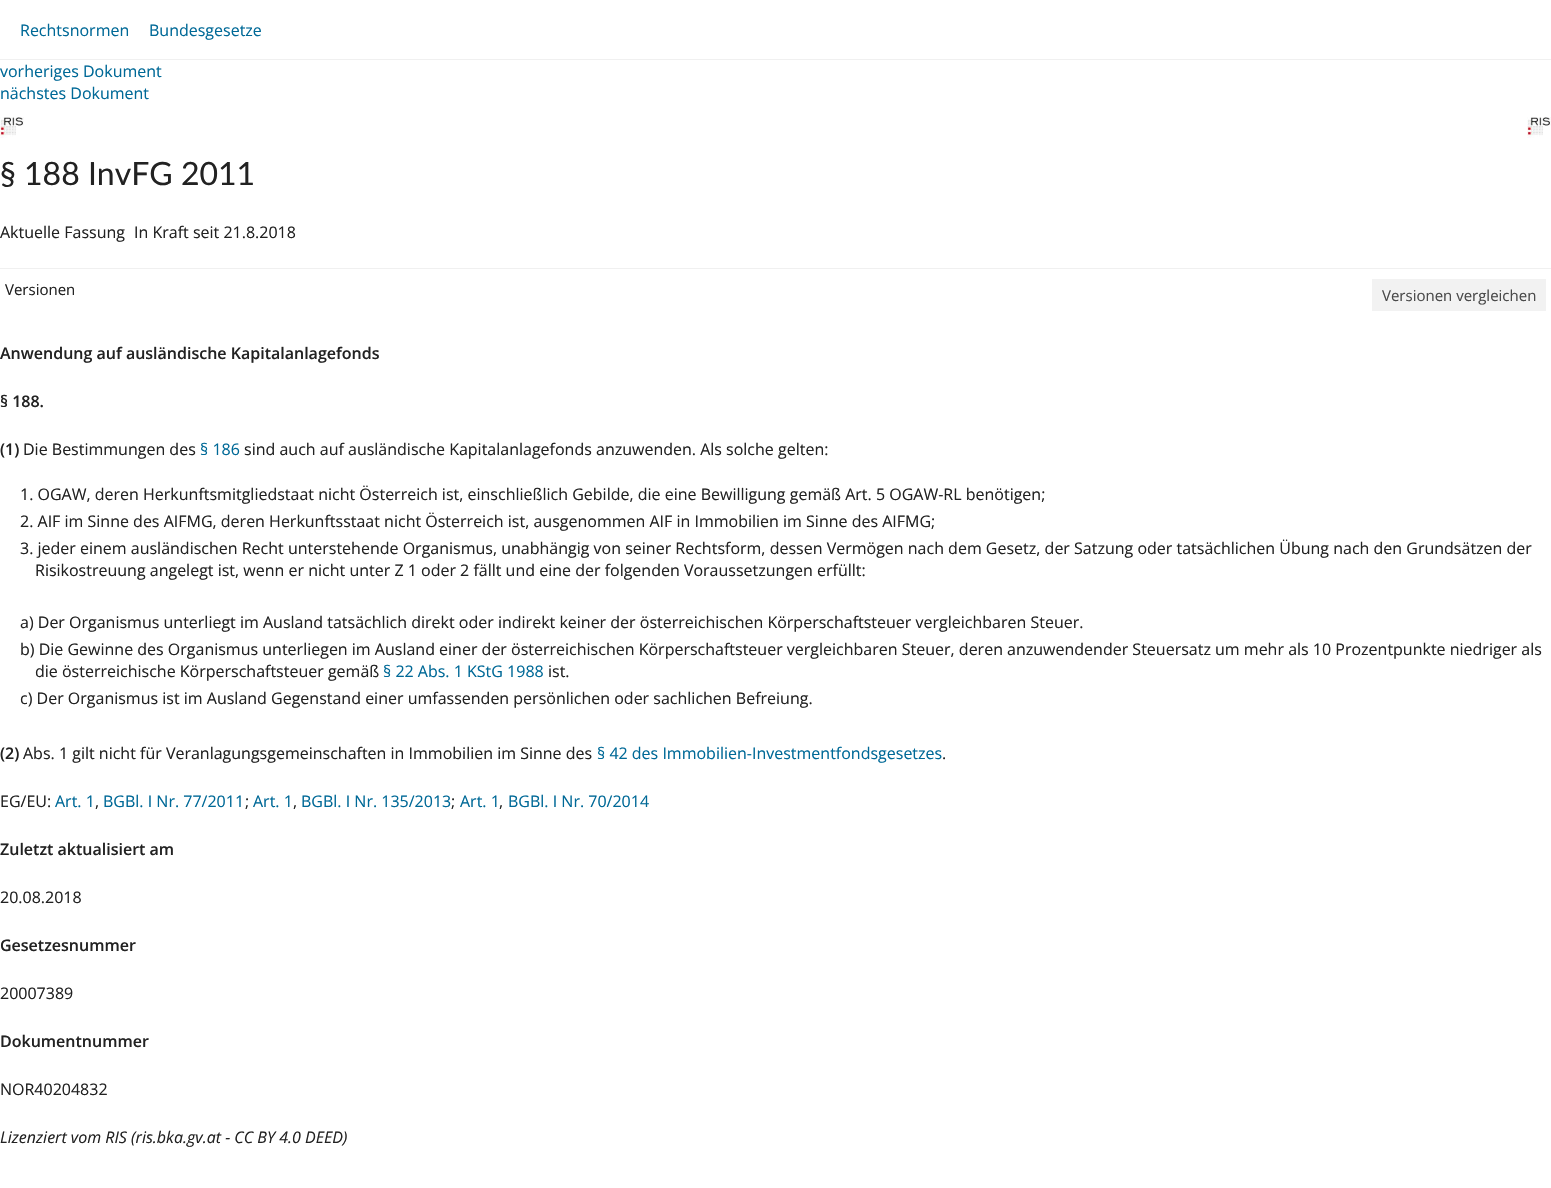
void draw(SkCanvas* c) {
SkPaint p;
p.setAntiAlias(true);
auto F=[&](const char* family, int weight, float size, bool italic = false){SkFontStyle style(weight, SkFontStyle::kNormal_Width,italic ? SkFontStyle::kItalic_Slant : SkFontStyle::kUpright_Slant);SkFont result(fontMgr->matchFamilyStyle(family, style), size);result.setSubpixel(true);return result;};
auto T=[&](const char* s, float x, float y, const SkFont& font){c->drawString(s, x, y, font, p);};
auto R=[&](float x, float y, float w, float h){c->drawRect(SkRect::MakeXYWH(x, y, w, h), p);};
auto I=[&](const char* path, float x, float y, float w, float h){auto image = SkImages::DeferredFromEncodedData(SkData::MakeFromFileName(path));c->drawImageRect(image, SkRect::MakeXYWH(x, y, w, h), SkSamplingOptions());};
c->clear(0xffffffff);
p.setColor(0xfff0f0f0);
R(0,59,1551,1);
auto f1 = F("Open Sans",400,16);
p.setColor(0xff006997);
T("Rechtsnormen",20,36,f1);
T("Bundesgesetze",149,36,f1);
T("vorheriges Dokument",0,77,f1);
T("nächstes Dokument",0,99,f1);
I("1.png",1527,117,24,21);
I("1.png",0,117,24,21);
auto f2 = F("Lato",400,32);
p.setColor(0xff222222);
T("§ 188 InvFG 2011",0,185,f2);
T("Aktuelle Fassung",0,238,f1);
T("In Kraft seit 21.8.2018",134,238,f1);
p.setColor(0xfff0f0f0);
R(0,268,1551,1);
auto f3 = F("Open Sans",400,15);
p.setColor(0xff222222);
T("Versionen",5,295,f3);
p.setColor(0xfff2f2f2);
R(1372,279,174,32);
p.setColor(0xff4a4a4a);
T("Versionen vergleichen",1382,301,f3);
auto f4 = F("Open Sans",600,16);
p.setColor(0xff222222);
T("Anwendung auf ausländische Kapitalanlagefonds",0,359,f4);
T("§ 188.",0,407,f4);
T("(1)",0,455,f4);
T("Die Bestimmungen des",23,455,f1);
p.setColor(0xff006997);
T("§ 186",200,455,f1);
p.setColor(0xff222222);
T("sind auch auf ausländische Kapitalanlagefonds anzuwenden. Als solche gelten:",244,455,f1);
T("1. OGAW, deren Herkunftsmitgliedstaat nicht Österreich ist, einschließlich Gebilde, die eine Bewilligung gemäß Art. 5 OGAW-RL benötigen;",20,500,f1);
T("2. AIF im Sinne des AIFMG, deren Herkunftsstaat nicht Österreich ist, ausgenommen AIF in Immobilien im Sinne des AIFMG;",20,527,f1);
T("3. jeder einem ausländischen Recht unterstehende Organismus, unabhängig von seiner Rechtsform, dessen Vermögen nach dem Gesetz, der Satzung oder tatsächlichen Übung nach den Grundsätzen der",20,554,f1);
T("Risikostreuung angelegt ist, wenn er nicht unter Z 1 oder 2 fällt und eine der folgenden Voraussetzungen erfüllt:",35,576,f1);
T("a) Der Organismus unterliegt im Ausland tatsächlich direkt oder indirekt keiner der österreichischen Körperschaftsteuer vergleichbaren Steuer.",20,628,f1);
T("b) Die Gewinne des Organismus unterliegen im Ausland einer der österreichischen Körperschaftsteuer vergleichbaren Steuer, deren anzuwendender Steuersatz um mehr als 10 Prozentpunkte niedriger als",20,655,f1);
T("die österreichische Körperschaftsteuer gemäß",35,677,f1);
p.setColor(0xff006997);
T("§ 22 Abs. 1 KStG 1988",383,677,f1);
p.setColor(0xff222222);
T("ist.",548,677,f1);
T("c) Der Organismus ist im Ausland Gegenstand einer umfassenden persönlichen oder sachlichen Befreiung.",20,704,f1);
T("(2)",0,759,f4);
T("Abs. 1 gilt nicht für Veranlagungsgemeinschaften in Immobilien im Sinne des",23,759,f1);
p.setColor(0xff006997);
T("§ 42 des Immobilien-Investmentfondsgesetzes",597,759,f1);
p.setColor(0xff222222);
T(".",942,759,f1);
T("EG/EU:",0,807,f1);
p.setColor(0xff006997);
T("Art. 1",55,807,f1);
p.setColor(0xff222222);
T(",",95,807,f1);
p.setColor(0xff006997);
T("BGBl. I Nr. 77/2011",103,807,f1);
p.setColor(0xff222222);
T(";",245,807,f1);
p.setColor(0xff006997);
T("Art. 1",253,807,f1);
p.setColor(0xff222222);
T(",",293,807,f1);
p.setColor(0xff006997);
T("BGBl. I Nr. 135/2013",301,807,f1);
p.setColor(0xff222222);
T(";",451,807,f1);
p.setColor(0xff006997);
T("Art. 1",460,807,f1);
p.setColor(0xff222222);
T(",",499,807,f1);
p.setColor(0xff006997);
T("BGBl. I Nr. 70/2014",508,807,f1);
p.setColor(0xff222222);
T("Zuletzt aktualisiert am",0,855,f4);
T("20.08.2018",0,903,f1);
T("Gesetzesnummer",0,951,f4);
T("20007389",0,999,f1);
T("Dokumentnummer",0,1047,f4);
T("NOR40204832",0,1095,f1);
auto f5 = F("Open Sans",400,16,true);
T("Lizenziert vom RIS (ris.bka.gv.at - CC BY 4.0 DEED)",0,1143,f5);
}
